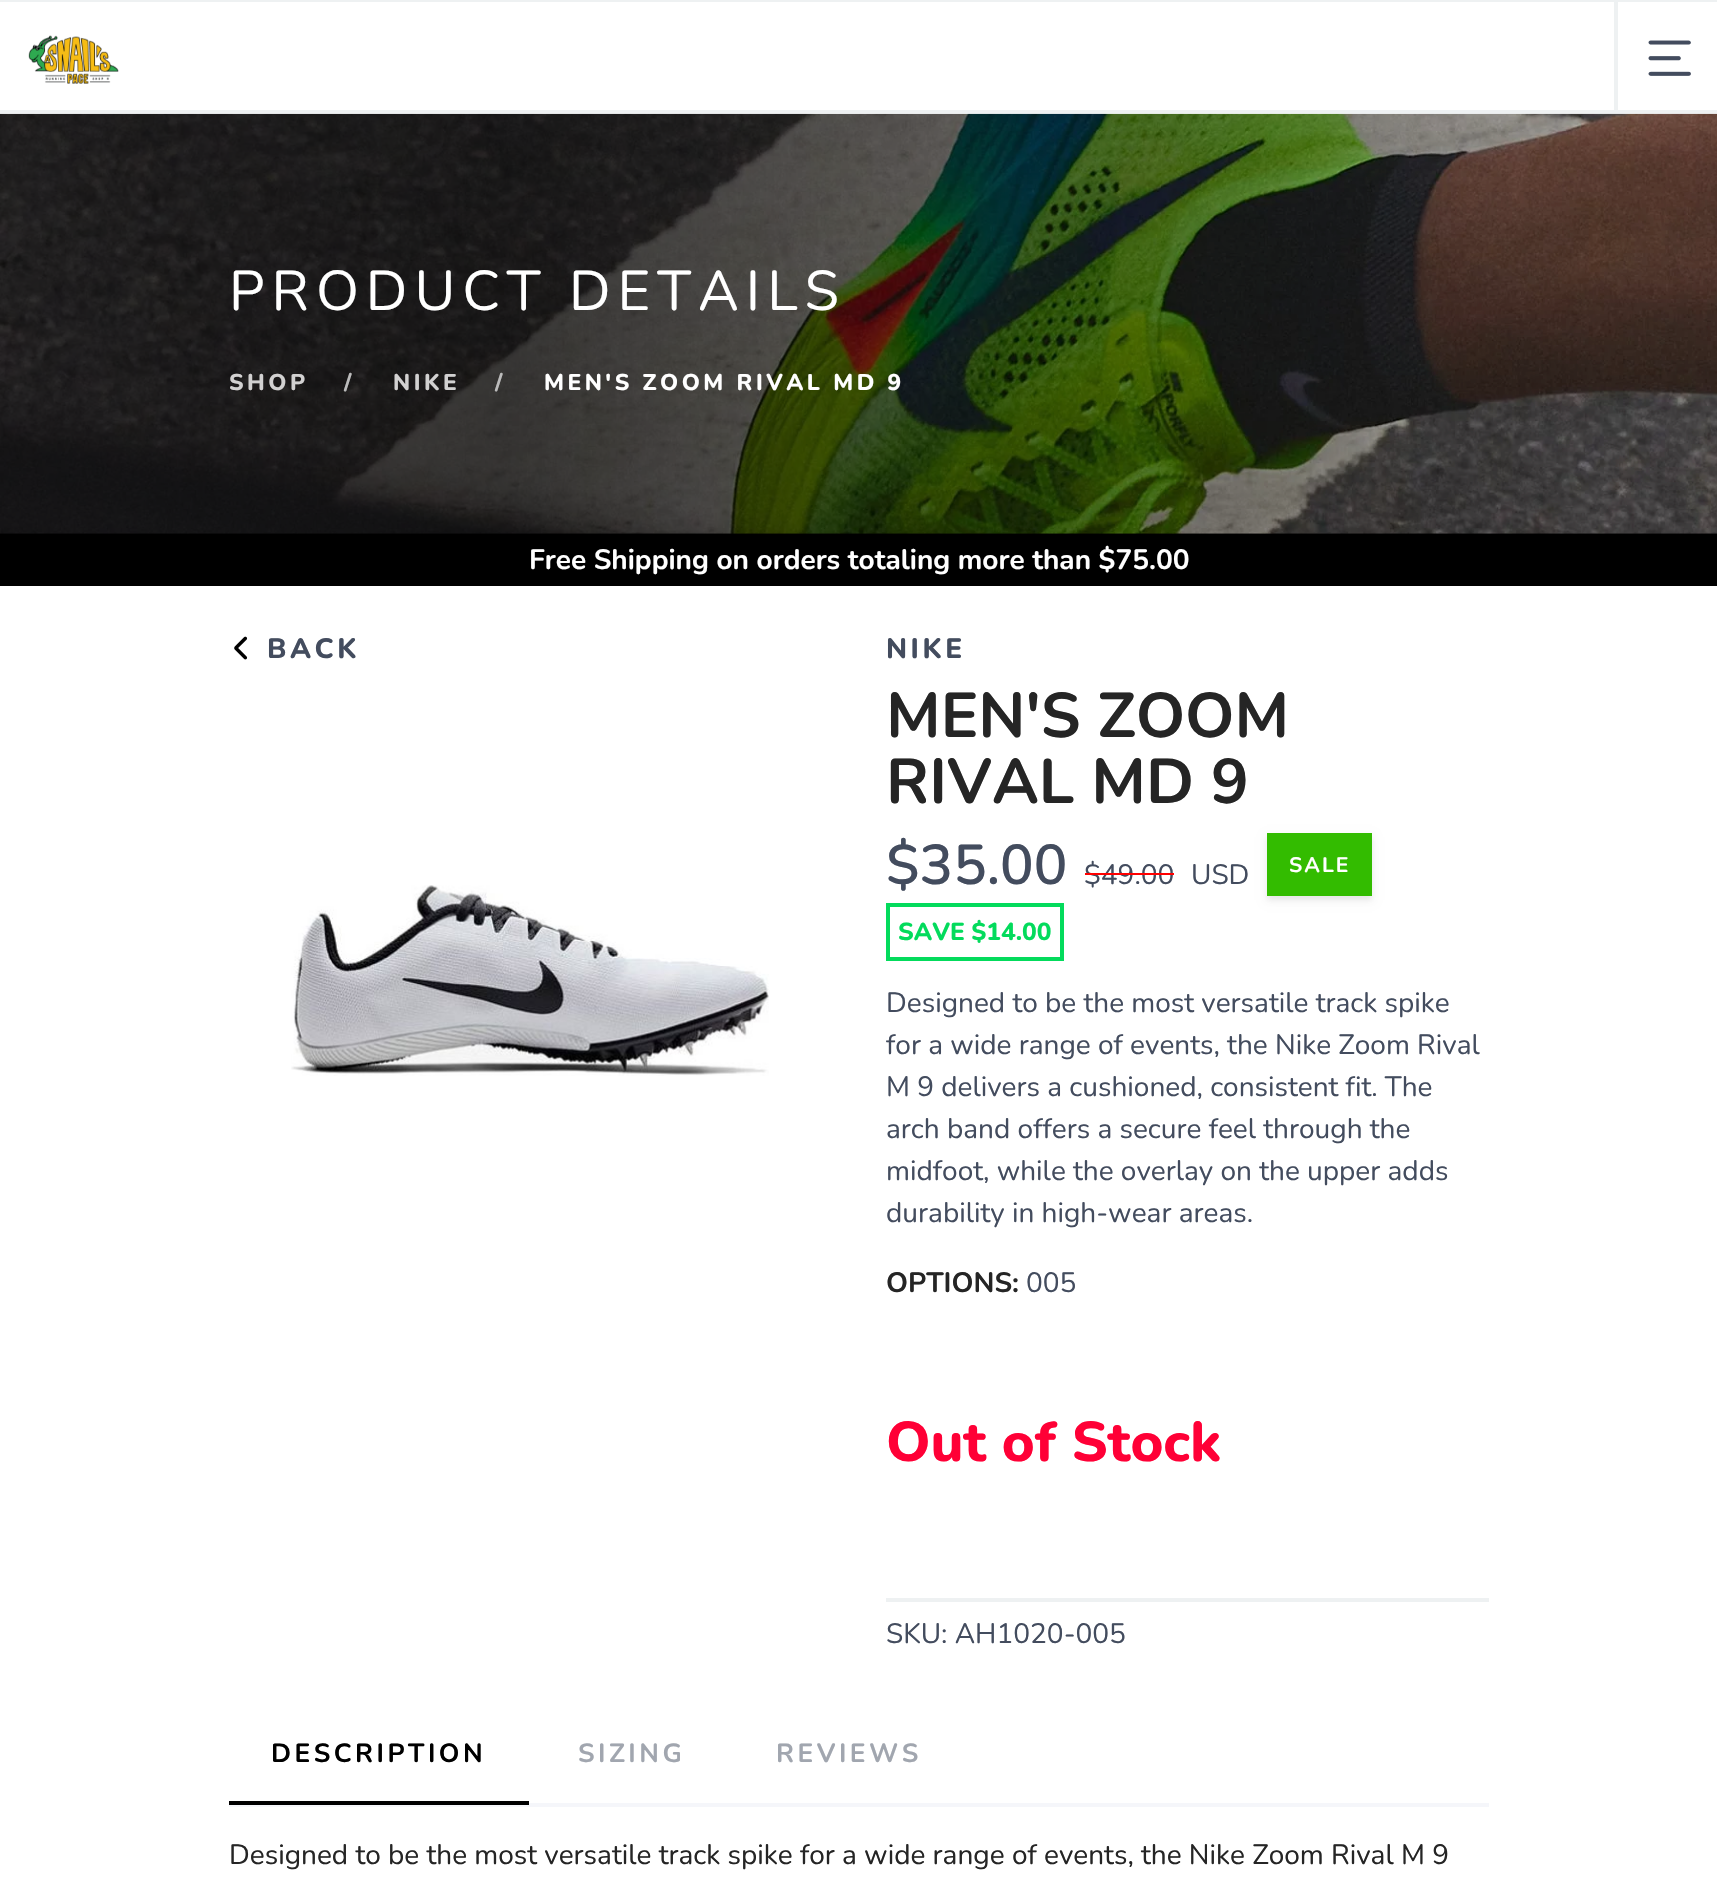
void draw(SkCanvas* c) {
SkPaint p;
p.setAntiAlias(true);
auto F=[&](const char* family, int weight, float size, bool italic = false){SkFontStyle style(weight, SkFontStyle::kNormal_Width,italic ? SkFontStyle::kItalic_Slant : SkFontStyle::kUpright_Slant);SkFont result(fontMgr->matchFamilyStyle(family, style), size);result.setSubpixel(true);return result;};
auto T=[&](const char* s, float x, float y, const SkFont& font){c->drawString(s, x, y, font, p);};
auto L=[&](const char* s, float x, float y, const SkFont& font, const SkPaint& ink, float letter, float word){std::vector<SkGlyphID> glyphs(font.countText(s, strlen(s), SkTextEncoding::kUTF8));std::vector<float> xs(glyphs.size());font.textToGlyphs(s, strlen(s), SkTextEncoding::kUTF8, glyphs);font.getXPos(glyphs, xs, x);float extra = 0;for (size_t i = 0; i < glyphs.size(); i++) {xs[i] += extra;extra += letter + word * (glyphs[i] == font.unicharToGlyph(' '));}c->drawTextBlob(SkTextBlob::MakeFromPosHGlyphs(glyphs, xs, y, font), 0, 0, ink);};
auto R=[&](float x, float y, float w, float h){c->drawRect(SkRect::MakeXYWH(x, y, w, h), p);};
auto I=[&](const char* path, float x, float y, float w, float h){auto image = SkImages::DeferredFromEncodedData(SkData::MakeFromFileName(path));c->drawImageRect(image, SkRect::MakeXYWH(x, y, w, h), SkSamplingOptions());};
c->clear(0xffffffff);
p.setColor(0xffeef1f2);
R(0,0,1717,2);
R(0,110,1717,4);
I("1.png",28,35,91,49);
R(1614,2,4,108);
I("2.png",1648,40,43,36);
p.setColor(0xff000000);
R(0,533,1717,53);
I("3.png",0,113,1717,421);
{
const SkColor colors[] = {0xb3000000,0x12000000};
const float stops[] = {.3,1};
const SkPoint ends[] = {{0,324}, {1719,324}};
p.setShader(SkGradientShader::MakeLinear(ends, colors, stops, 2, SkTileMode::kClamp));
p.setAlpha(255);
}
R(0,114,1717,420);
auto f1 = F("Nunito",400,56);
p.setShader(nullptr);
p.setColor(0xffffffff);
L("PRODUCT DETAILS",229,310,f1,p,7,0);
auto f2 = F("Nunito",800,22.75);
p.setColor(0xffd2d1d1);
L("SHOP",229,390,f2,p,3.5,0);
p.setColor(0xffbbbbbb);
L("/",344,390,f2,p,3.5,0);
p.setColor(0xffd2d1d1);
L("NIKE",393,390,f2,p,3.5,0);
p.setColor(0xffbbbbbb);
L("/",495,390,f2,p,3.5,0);
p.setColor(0xffffffff);
L("MEN'S ZOOM RIVAL MD 9",544,390,f2,p,3.5,0);
auto f3 = F("Nunito",700,28);
T("Free Shipping on orders totaling more than $75.00",529,569,f3);
I("4.png",234,636,14,24);
auto f4 = F("Nunito",800,28);
p.setColor(0xff434c5e);
L("BACK",267,658,f4,p,3.5,0);
I("5.png",291,885,479,191);
L("NIKE",886,658,f4,p,3.5,0);
auto f5 = F("Nunito",700,63);
p.setColor(0xff252525);
T("MEN'S ZOOM",886,737,f5);
T("RIVAL MD 9",886,803,f5);
auto f6 = F("Nunito",600,56);
p.setColor(0xff434c5e);
T("$35.00",886,884,f6);
auto f7 = F("Nunito",400,28);
T("$49.00",1084,884,f7);
p.setColor(0xffff0000);
R(1085,873,89,2);
p.setColor(0xff434c5e);
T("USD",1191,884,f7);
p.setColor(0x0d000000);
p.setMaskFilter(SkMaskFilter::MakeBlur(kNormal_SkBlurStyle, 2.5));
c->drawRect(SkRect::MakeXYWH(1267,837,105,63),p);
p.setMaskFilter(nullptr);
p.setMaskFilter(SkMaskFilter::MakeBlur(kNormal_SkBlurStyle, 4.5));
c->drawRect(SkRect::MakeXYWH(1267,837,105,63),p);
p.setMaskFilter(nullptr);
p.setColor(0xff33bc00);
R(1267,833,105,63);
auto f8 = F("Nunito",700,21);
p.setColor(0xffffffff);
L("SALE",1289,872,f8,p,2,0);
p.setStroke(true);
p.setStrokeWidth(4);
p.setColor(0xff03db5c);
c->drawRect(SkRect::MakeXYWH(888,905,174,54),p);
auto f9 = F("Nunito",800,24.5);
p.setStroke(false);
T("SAVE $14.00",898,940,f9);
p.setColor(0xff434c5e);
T("Designed to be the most versatile track spike",886,1012,f7);
T("for a wide range of events, the Nike Zoom Rival",886,1054,f7);
T("M 9 delivers a cushioned, consistent fit. The",886,1096,f7);
T("arch band offers a secure feel through the",886,1138,f7);
T("midfoot, while the overlay on the upper adds",886,1180,f7);
T("durability in high-wear areas.",886,1222,f7);
p.setColor(0xff252525);
T("OPTIONS:",886,1292,f3);
p.setColor(0xff434c5e);
T("005",1026,1292,f7);
auto f10 = F("Nunito",800,56);
p.setColor(0xffff0036);
T("Out of Stock",886,1461,f10);
p.setColor(0xffeef1f2);
R(886,1598,603,4);
p.setColor(0xff434c5e);
T("SKU: AH1020-005",886,1643,f7);
p.setColor(0xfff5f6fa);
R(229,1803,1260,4);
auto f11 = F("Nunito",700,26.25);
p.setColor(0xff000000);
L("DESCRIPTION",271,1762,f11,p,3.5,0);
R(229,1801,300,4);
p.setColor(0xffa1a6af);
L("SIZING",578,1762,f11,p,3.5,0);
L("REVIEWS",776,1762,f11,p,3.5,0);
p.setColor(0xff252525);
T("Designed to be the most versatile track spike for a wide range of events, the Nike Zoom Rival M 9",229,1864,f7);
}
